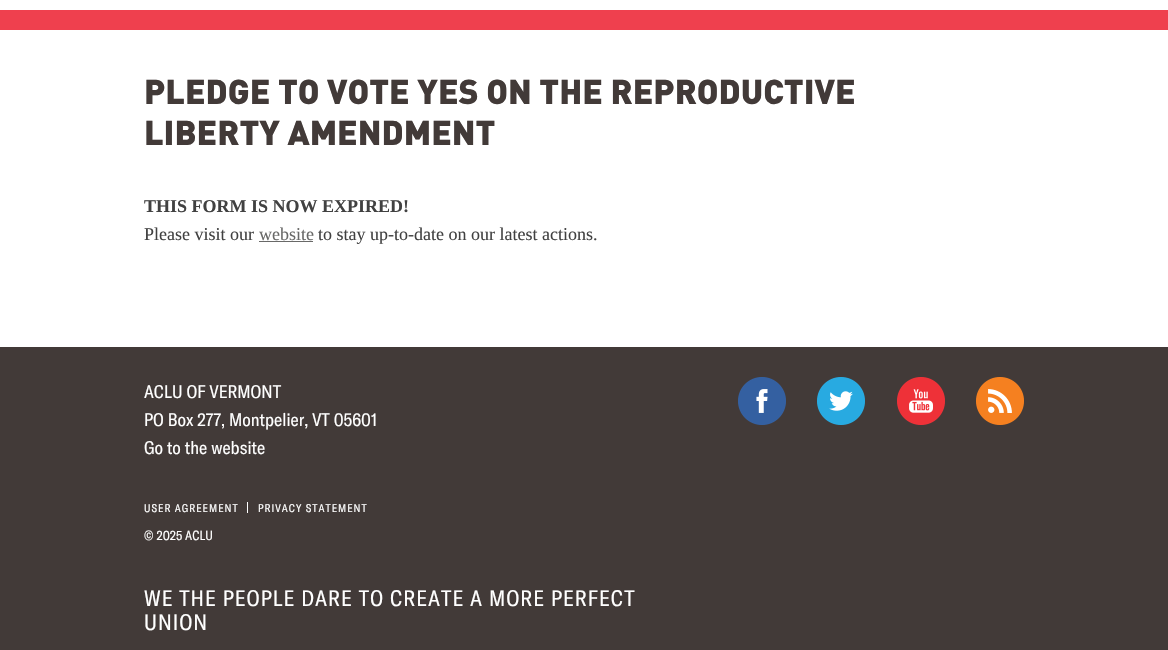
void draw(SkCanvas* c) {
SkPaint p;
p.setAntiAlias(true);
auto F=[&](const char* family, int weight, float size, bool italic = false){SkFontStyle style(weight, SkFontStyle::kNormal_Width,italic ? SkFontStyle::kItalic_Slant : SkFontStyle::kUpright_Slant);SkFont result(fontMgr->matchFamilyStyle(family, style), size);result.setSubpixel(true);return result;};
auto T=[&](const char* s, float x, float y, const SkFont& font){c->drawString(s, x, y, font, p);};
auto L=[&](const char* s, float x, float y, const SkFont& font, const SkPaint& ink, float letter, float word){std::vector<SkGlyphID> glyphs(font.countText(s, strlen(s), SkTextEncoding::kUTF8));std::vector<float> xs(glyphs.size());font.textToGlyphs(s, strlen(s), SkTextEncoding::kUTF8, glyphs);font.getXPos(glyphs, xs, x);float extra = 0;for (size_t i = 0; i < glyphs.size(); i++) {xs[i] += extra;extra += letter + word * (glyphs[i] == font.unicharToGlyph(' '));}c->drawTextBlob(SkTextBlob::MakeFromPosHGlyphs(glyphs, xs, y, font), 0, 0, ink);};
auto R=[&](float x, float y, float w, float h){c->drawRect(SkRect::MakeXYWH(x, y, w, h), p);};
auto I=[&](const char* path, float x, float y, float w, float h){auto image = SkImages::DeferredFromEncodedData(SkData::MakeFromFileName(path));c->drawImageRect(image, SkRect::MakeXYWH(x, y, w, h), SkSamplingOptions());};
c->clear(0xffffffff);
p.setColor(0xffef404e);
R(0,10,1168,20);
auto f1 = F("DIN",900,34);
p.setColor(0xff423a38);
T("PLEDGE TO VOTE YES ON THE REPRODUCTIVE",144,104,f1);
T("LIBERTY AMENDMENT",144,145,f1);
auto f2 = F("Liberation Serif",700,18);
p.setColor(0xff414141);
T("THIS FORM IS NOW EXPIRED!",144,212,f2);
auto f3 = F("Liberation Serif",400,18);
T("Please visit our",144,240,f3);
p.setColor(0xff696968);
T("website",259,240,f3);
R(259,241,54,1);
p.setColor(0xff414141);
T("to stay up-to-date on our latest actions.",318,240,f3);
p.setColor(0xff423a38);
R(0,347,1168,303);
auto f4 = F("GT America",400,18);
p.setColor(0xffffffff);
T("ACLU OF VERMONT",144,398,f4);
T("PO Box 277, Montpelier, VT 05601",144,426,f4);
T("Go to the website",144,454,f4);
R(247,502,1,11);
auto f5 = F("GT America",400,11);
L("USER AGREEMENT",144,512,f5,p,1,0);
L("PRIVACY STATEMENT",258,512,f5,p,1,0);
auto f6 = F("GT America",400,13);
T("© 2025 ACLU",144,540,f6);
auto f7 = F("GT America",400,22);
L("WE THE PEOPLE DARE TO CREATE A MORE PERFECT",144,606,f7,p,1,0);
L("UNION",144,630,f7,p,1,0);
I("1.png",738,377,48,48);
I("2.png",817,377,48,48);
I("3.png",897,377,48,48);
I("4.png",976,377,48,48);
}
